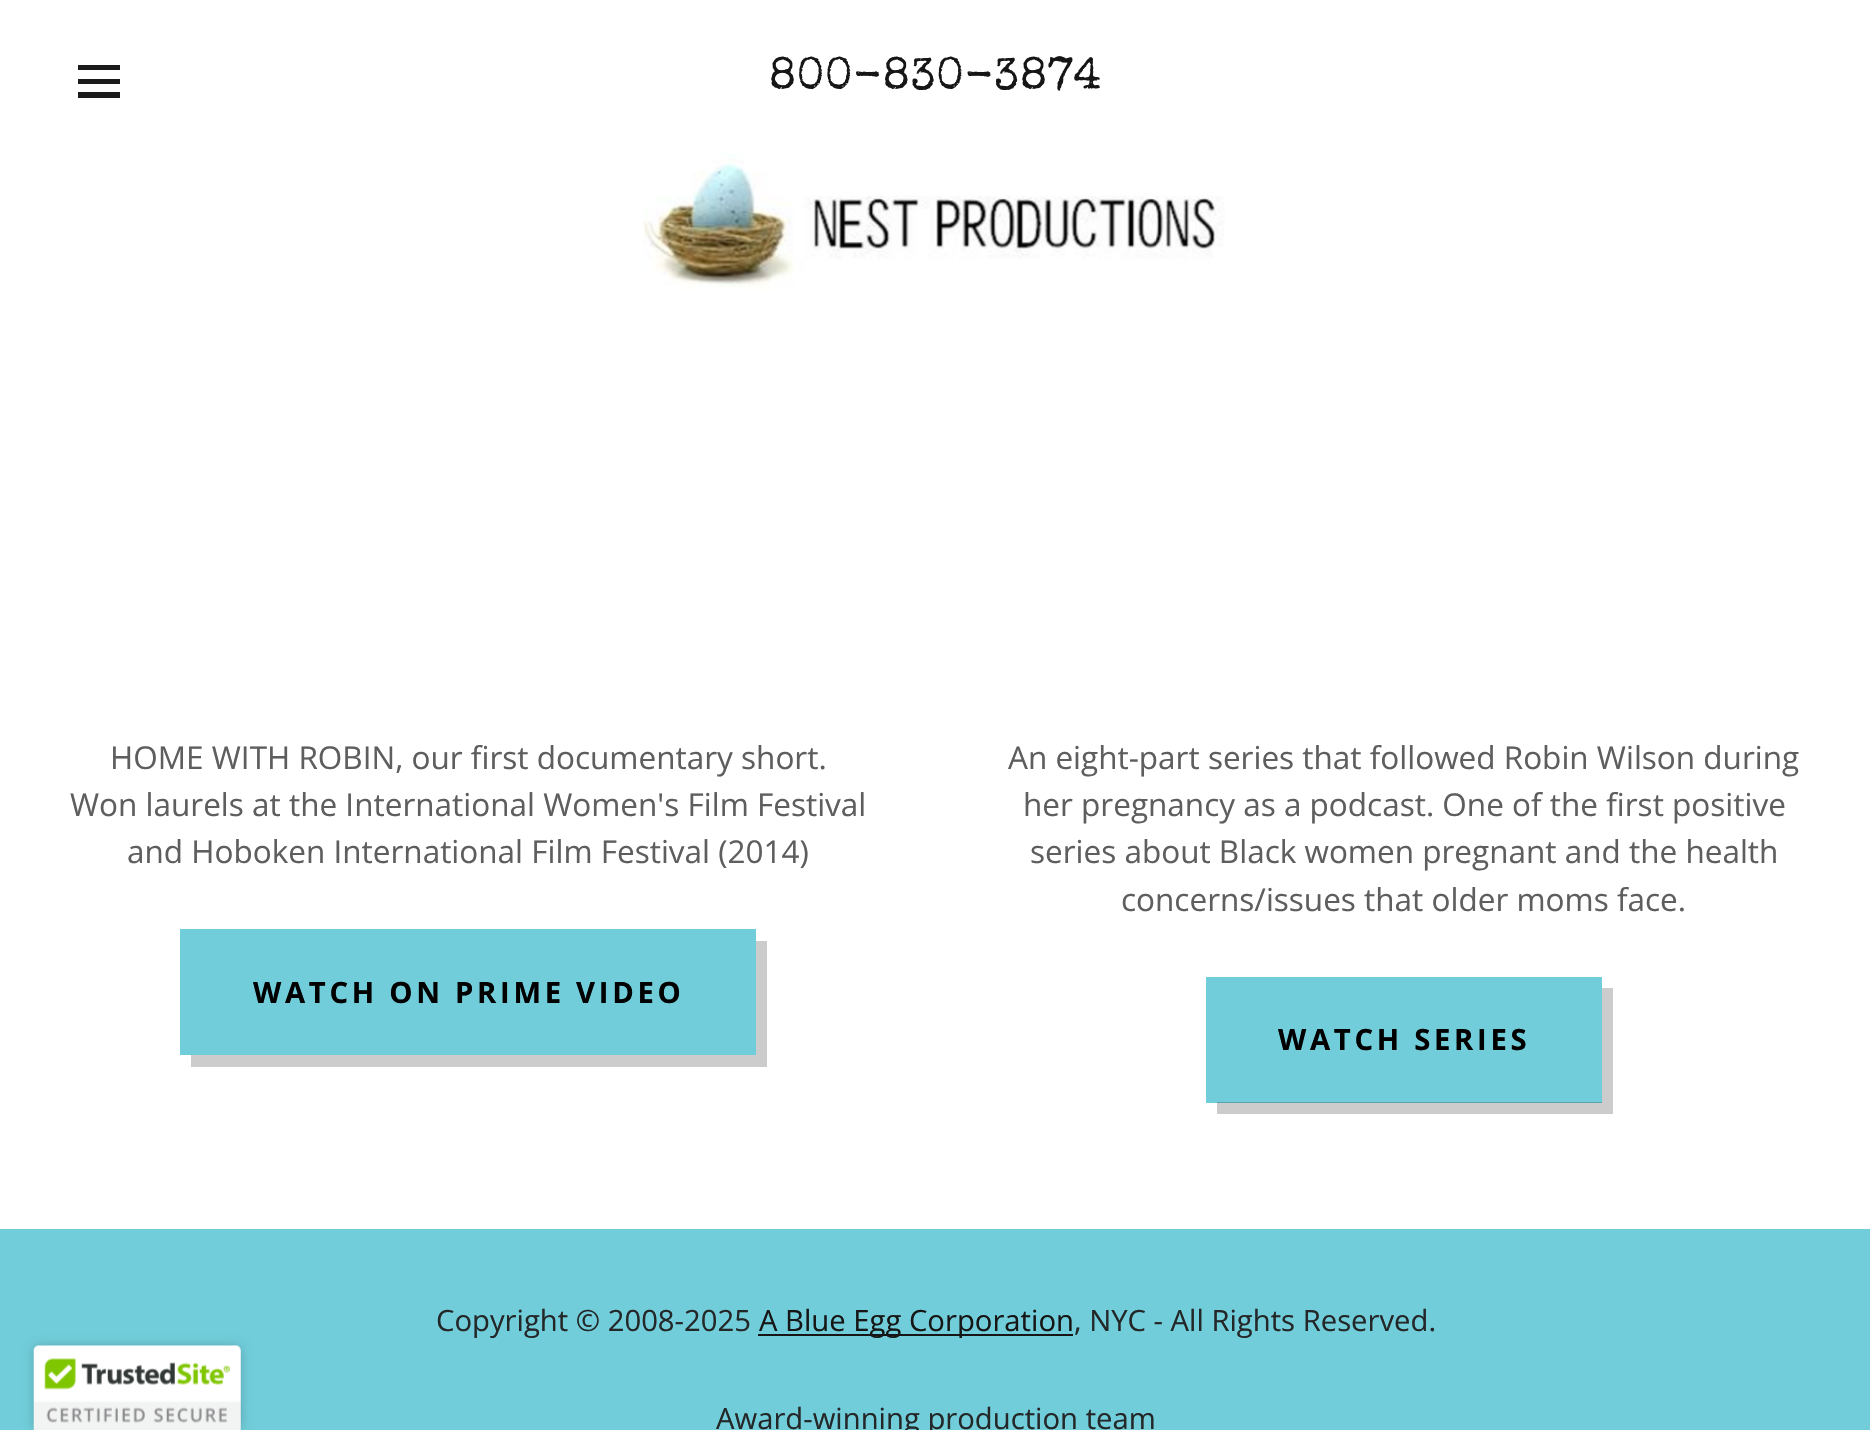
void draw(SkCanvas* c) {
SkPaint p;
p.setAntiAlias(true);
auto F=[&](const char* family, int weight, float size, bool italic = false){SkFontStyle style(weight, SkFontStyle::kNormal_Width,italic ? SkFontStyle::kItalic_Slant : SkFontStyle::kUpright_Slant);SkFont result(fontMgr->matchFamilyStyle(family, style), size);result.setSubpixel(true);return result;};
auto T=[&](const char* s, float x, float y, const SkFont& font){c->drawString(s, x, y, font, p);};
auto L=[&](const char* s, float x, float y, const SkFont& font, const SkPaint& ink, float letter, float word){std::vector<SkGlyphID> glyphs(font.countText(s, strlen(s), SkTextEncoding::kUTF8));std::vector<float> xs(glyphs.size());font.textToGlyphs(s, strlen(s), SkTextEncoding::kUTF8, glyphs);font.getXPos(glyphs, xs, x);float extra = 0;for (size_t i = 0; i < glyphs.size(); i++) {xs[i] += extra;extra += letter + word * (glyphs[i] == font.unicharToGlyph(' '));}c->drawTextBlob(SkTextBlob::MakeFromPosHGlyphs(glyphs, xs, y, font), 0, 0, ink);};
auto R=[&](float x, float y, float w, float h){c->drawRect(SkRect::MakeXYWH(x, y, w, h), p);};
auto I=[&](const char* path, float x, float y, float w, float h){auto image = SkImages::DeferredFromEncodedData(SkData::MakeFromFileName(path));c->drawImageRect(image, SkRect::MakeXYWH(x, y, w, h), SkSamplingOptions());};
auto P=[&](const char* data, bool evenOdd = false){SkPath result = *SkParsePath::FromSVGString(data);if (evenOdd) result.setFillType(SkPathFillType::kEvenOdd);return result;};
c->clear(0xff71cdda);
p.setColor(0xffffffff);
R(0,0,1870,1229);
p.setColor(0xff1b1b1b);
R(78,65,42,5);
R(78,79,42,5);
R(78,92,42,6);
auto f1 = F("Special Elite",400,45);
p.setColor(0xff161616);
L("800-830-3874",769,89,f1,p,.8,0);
I("1.png",643,153,582,137);
auto f2 = F("Open Sans",400,31.5);
p.setColor(0xff5e5e5e);
T("HOME WITH ROBIN, our first documentary short.",110,769,f2);
T("Won laurels at the International Women's Film Festival",70,816,f2);
T("and Hoboken International Film Festival (2014)",127,863,f2);
p.setColor(0xff71cdda);
R(180,929,576,126);
p.setColor(0xffcccccc);
c->drawPath(P("M191 1055v12h576v-126h-11v114z"),p);
auto f3 = F("Open Sans",700,29.25);
p.setColor(0xff000000);
L("WATCH ON PRIME VIDEO",253,1003,f3,p,3.7,0);
p.setColor(0xff5e5e5e);
T("An eight-part series that followed Robin Wilson during",1008,769,f2);
T("her pregnancy as a podcast. One of the first positive",1023,816,f2);
T("series about Black women pregnant and the health",1030,863,f2);
T("concerns/issues that older moms face.",1121,911,f2);
p.setColor(0xff71cdda);
R(1206,977,396,126);
p.setColor(0x33000000);
c->drawPath(P("M1217 1102v12h396v-126h-11v114z"),p);
p.setColor(0xff000000);
L("WATCH SERIES",1278,1050,f3,p,3.7,0);
auto f4 = F("Open Sans",400,29.25);
p.setColor(0xff242728);
T("Copyright © 2008-2025",436,1331,f4);
p.setColor(0xff161616);
R(758,1334,315,2);
T("A Blue Egg Corporation",759,1331,f4);
p.setColor(0xff242728);
T(", NYC - All Rights Reserved.",1074,1331,f4);
T("Award-winning production team",716,1429,f4);
p.setColor(0x33000000);
p.setMaskFilter(SkMaskFilter::MakeBlur(kNormal_SkBlurStyle, 5.5));
c->drawRoundRect(SkRect::MakeXYWH(34,1346,207,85),5,5,p);
p.setMaskFilter(nullptr);
I("2.png",33,1345,208,85);
}
